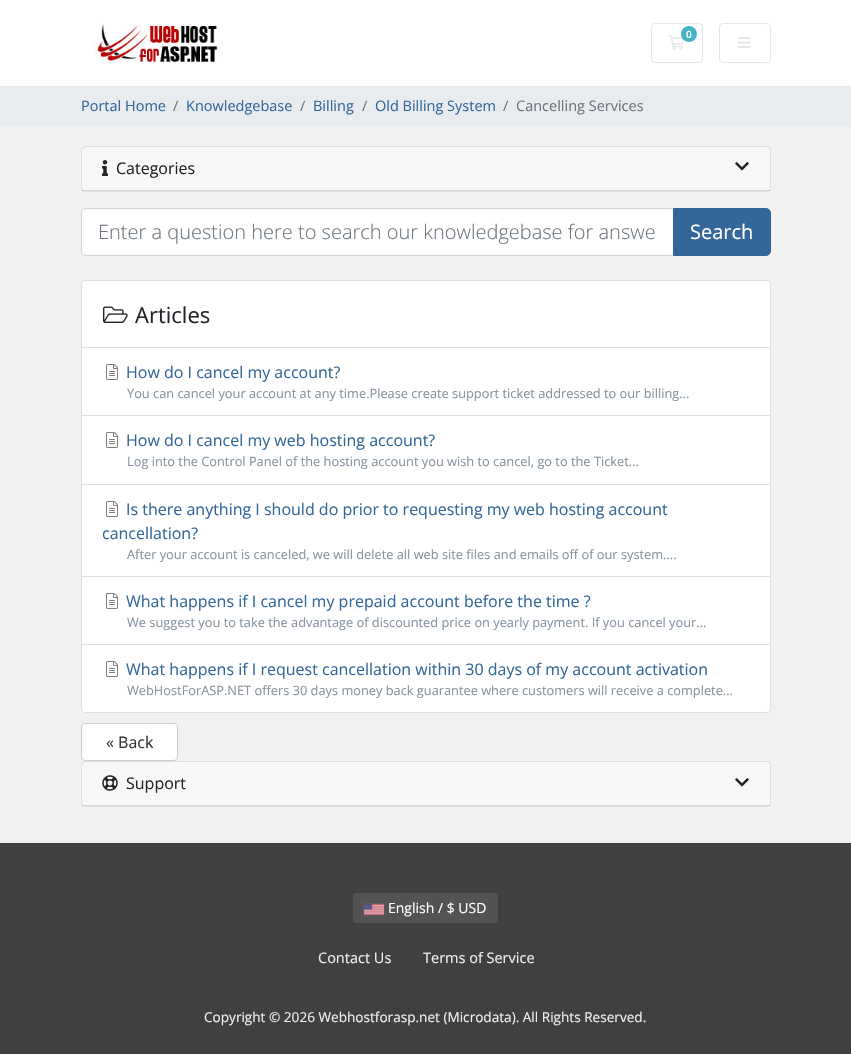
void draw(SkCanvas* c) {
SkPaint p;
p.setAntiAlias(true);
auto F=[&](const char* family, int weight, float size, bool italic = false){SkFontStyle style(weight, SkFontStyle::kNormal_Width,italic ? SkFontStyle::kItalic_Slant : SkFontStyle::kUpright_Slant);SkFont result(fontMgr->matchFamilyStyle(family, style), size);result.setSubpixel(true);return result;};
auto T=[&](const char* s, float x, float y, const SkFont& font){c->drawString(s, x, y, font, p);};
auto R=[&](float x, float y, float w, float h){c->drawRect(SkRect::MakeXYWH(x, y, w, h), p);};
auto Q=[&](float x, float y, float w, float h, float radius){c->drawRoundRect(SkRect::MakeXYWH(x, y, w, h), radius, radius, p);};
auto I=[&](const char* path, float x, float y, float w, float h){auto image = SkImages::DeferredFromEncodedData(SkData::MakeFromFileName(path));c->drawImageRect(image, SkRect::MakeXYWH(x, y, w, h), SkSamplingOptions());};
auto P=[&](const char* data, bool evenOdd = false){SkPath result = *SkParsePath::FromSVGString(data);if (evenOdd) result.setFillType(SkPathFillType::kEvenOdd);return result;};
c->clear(0xfff1f1f1);
p.setColor(0xffffffff);
R(0,0,851,86);
I("1.png",93,23,125,39);
p.setStroke(true);
p.setStrokeWidth(1);
p.setColor(0xffe5e5e5);
c->drawRoundRect(SkRect::MakeXYWH(651.5,23.5,51,39),3.5,3.5,p);
I("2.png",668,35,16,15);
p.setStroke(false);
p.setColor(0xcc17a2b8);
c->drawCircle(689,34,8,p);
auto f1 = F("Open Sans",600,10);
p.setColor(0xffffffff);
T("0",686,38,f1);
p.setStroke(true);
p.setColor(0xffe5e5e5);
c->drawRoundRect(SkRect::MakeXYWH(719.5,23.5,51,39),3.5,3.5,p);
I("3.png",738,37,13,11);
p.setStroke(false);
p.setColor(0xffe9ecef);
R(0,86,851,40);
auto f2 = F("Open Sans",400,14.5);
p.setColor(0xff336699);
T("Portal Home",81,111,f2);
p.setColor(0xff6c757d);
T("/",173,111,f2);
p.setColor(0xff336699);
T("Knowledgebase",186,111,f2);
p.setColor(0xff6c757d);
T("/",300,111,f2);
p.setColor(0xff336699);
T("Billing",313,111,f2);
p.setColor(0xff6c757d);
T("/",362,111,f2);
p.setColor(0xff336699);
T("Old Billing System",375,111,f2);
p.setColor(0xff6c757d);
T("/",503,111,f2);
T("Cancelling Services",516,111,f2);
p.setColor(0xffffffff);
Q(81,146,690,46,4);
p.setStroke(true);
p.setColor(0x1f000000);
c->drawRoundRect(SkRect::MakeXYWH(81.5,146.5,689,45),3.5,3.5,p);
p.setStroke(false);
p.setColor(0x08000000);
R(82,147,688,44);
p.setColor(0x1f000000);
R(82,190,688,1);
I("4.png",102,160,6,16);
auto f3 = F("Open Sans",400,16);
p.setColor(0xff212529);
T("Categories",116,174,f3);
I("5.png",735,162,14,9);
p.setColor(0xffffffff);
c->drawPath(P("M86 208.5h587.5v47h-587.5c-2.5 0-4.5-2-4.5-4.5v-38c0-2.5 2-4.5 4.5-4.5z"),p);
p.setStroke(true);
p.setColor(0xffced4da);
c->drawPath(P("M86 208.5h587.5v47h-587.5c-2.5 0-4.5-2-4.5-4.5v-38c0-2.5 2-4.5 4.5-4.5z"),p);
auto f4 = F("Open Sans",300,20);
p.setStroke(false);
p.setColor(0xff6c757d);
T("Enter a question here to search our knowledgebase for answe",98,239,f4);
p.setColor(0xff336699);
c->drawPath(P("M673.5 208.5h92.5c2.5 0 4.5 2 4.5 4.5v38c0 2.5-2 4.5-4.5 4.5h-92.5z"),p);
p.setStroke(true);
c->drawPath(P("M673.5 208.5h92.5c2.5 0 4.5 2 4.5 4.5v38c0 2.5-2 4.5-4.5 4.5h-92.5z"),p);
auto f5 = F("Open Sans",400,20);
p.setStroke(false);
p.setColor(0xffffffff);
T("Search",690,239,f5);
Q(81,280,690,433,4);
p.setStroke(true);
p.setColor(0x1f000000);
c->drawRoundRect(SkRect::MakeXYWH(81.5,280.5,689,432),3.5,3.5,p);
I("6.png",103,306,25,17);
auto f6 = F("Open Sans",400,22);
p.setStroke(false);
p.setColor(0xff212529);
T("Articles",135,323,f6);
p.setColor(0xffdfdfdf);
R(82,347,688,1);
R(82,415,688,1);
I("7.png",106,364,12,16);
p.setColor(0xff336699);
T("How do I cancel my account?",126,378,f3);
auto f7 = F("Open Sans",400,12.8);
p.setColor(0xff87939f);
T("You can cancel your account at any time.Please create support ticket addressed to our billing...",127,398,f7);
p.setColor(0xffdfdfdf);
R(82,484,688,1);
I("7.png",106,432,12,16);
p.setColor(0xff336699);
T("How do I cancel my web hosting account?",126,446,f3);
p.setColor(0xff87939f);
T("Log into the Control Panel of the hosting account you wish to cancel, go to the Ticket...",127,466,f7);
p.setColor(0xffdfdfdf);
R(82,576,688,1);
I("7.png",106,501,12,16);
p.setColor(0xff336699);
T("Is there anything I should do prior to requesting my web hosting account",126,515,f3);
T("cancellation?",102,539,f3);
p.setColor(0xff87939f);
T("After your account is canceled, we will delete all web site files and emails off of our system....",127,559,f7);
p.setColor(0xffdfdfdf);
R(82,644,688,1);
I("7.png",106,593,12,16);
p.setColor(0xff336699);
T("What happens if I cancel my prepaid account before the time ?",126,607,f3);
p.setColor(0xff87939f);
T("We suggest you to take the advantage of discounted price on yearly payment. If you cancel your...",127,627,f7);
p.setColor(0xffffffff);
c->drawPath(P("M82 645h688v64c0 1.5-1.5 3-3 3h-682c-1.5 0-3-1.5-3-3z"),p);
I("7.png",106,661,12,16);
p.setColor(0xff336699);
T("What happens if I request cancellation within 30 days of my account activation",126,675,f3);
p.setColor(0xff87939f);
T("WebHostForASP.NET offers 30 days money back guarantee where customers will receive a complete...",127,695,f7);
p.setColor(0xffffffff);
c->drawRoundRect(SkRect::MakeXYWH(81.5,723.5,96,37),3.5,3.5,p);
p.setStroke(true);
p.setColor(0xffcccccc);
c->drawRoundRect(SkRect::MakeXYWH(81.5,723.5,96,37),3.5,3.5,p);
p.setStroke(false);
p.setColor(0xff333333);
T("« Back",106,748,f3);
p.setColor(0xffffffff);
Q(81,761,690,46,4);
p.setStroke(true);
p.setColor(0x1f000000);
c->drawRoundRect(SkRect::MakeXYWH(81.5,761.5,689,45),3.5,3.5,p);
p.setStroke(false);
p.setColor(0x08000000);
R(82,762,688,44);
p.setColor(0x1f000000);
R(82,805,688,1);
I("8.png",102,775,16,16);
p.setColor(0xff212529);
T("Support",126,789,f3);
I("9.png",735,778,14,9);
p.setColor(0xff404040);
R(0,843,851,211);
p.setColor(0xff535353);
Q(353,893,145,30,4);
p.setColor(0xff888888);
p.setMaskFilter(SkMaskFilter::MakeBlur(kNormal_SkBlurStyle, .5));
c->drawRect(SkRect::MakeXYWH(364,904,20,11),p);
p.setMaskFilter(nullptr);
I("10.png",364,904,20,11);
auto f8 = F("Open Sans",400,14);
p.setColor(0xffffffff);
T("English / $ USD",388,913,f8);
p.setColor(0xffeeeeee);
T("Contact Us",318,963,f2);
T("Terms of Service",423,963,f2);
auto f9 = F("Open Sans",400,13.6);
T("Copyright © 2026 Webhostforasp.net (Microdata). All Rights Reserved.",204,1022,f9);
}
